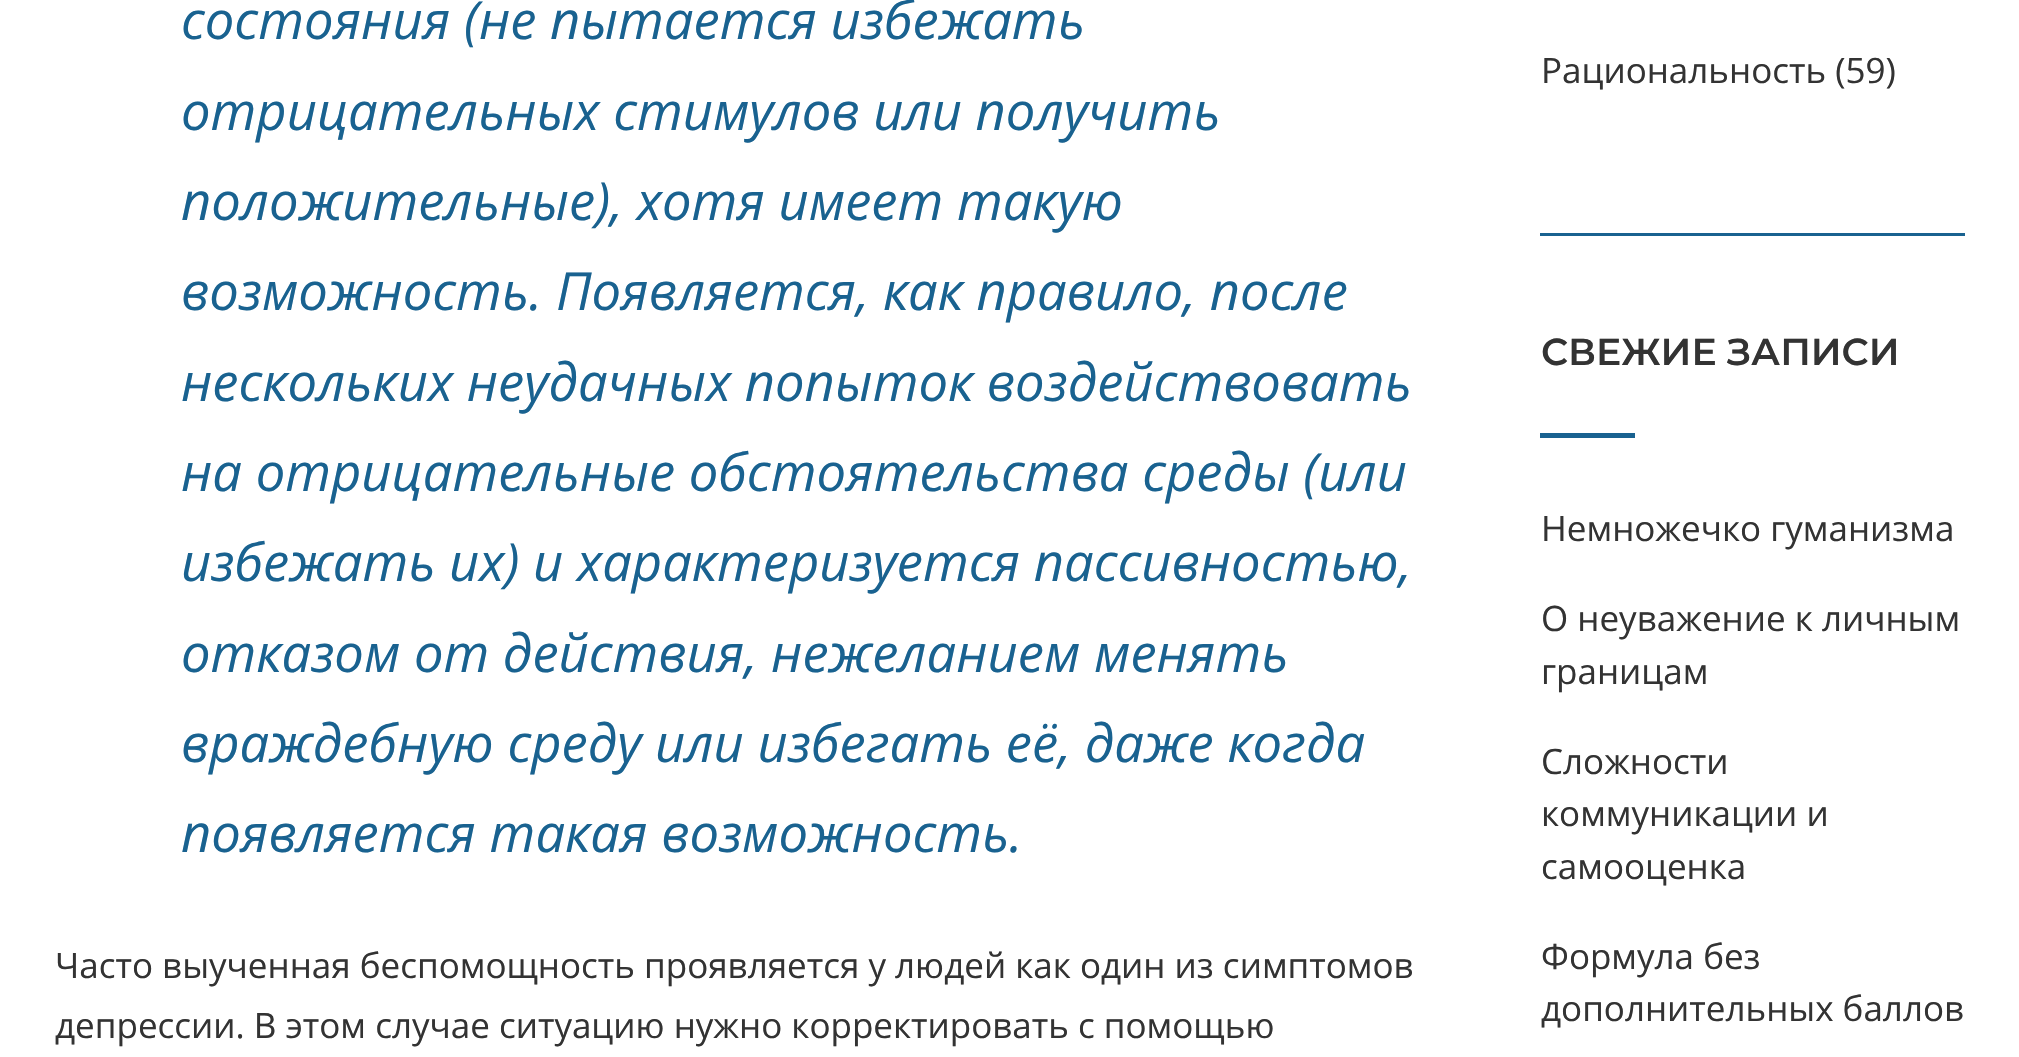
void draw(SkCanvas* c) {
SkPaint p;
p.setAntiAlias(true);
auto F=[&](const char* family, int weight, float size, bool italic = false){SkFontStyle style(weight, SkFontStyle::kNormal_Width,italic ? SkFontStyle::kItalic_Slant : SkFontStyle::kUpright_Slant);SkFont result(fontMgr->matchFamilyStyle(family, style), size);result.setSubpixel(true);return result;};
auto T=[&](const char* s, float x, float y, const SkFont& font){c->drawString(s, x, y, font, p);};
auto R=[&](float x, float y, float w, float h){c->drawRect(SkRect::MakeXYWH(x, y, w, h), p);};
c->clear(0xffffffff);
auto f1 = F("Open Sans",400,52.5,true);
p.setColor(0xff196290);
T("состояния (не пытается избежать",181,39,f1);
T("отрицательных стимулов или получить",181,130,f1);
T("положительные), хотя имеет такую",181,220,f1);
T("возможность. Появляется, как правило, после",181,310,f1);
T("нескольких неудачных попыток воздействовать",181,401,f1);
T("на отрицательные обстоятельства среды (или",181,491,f1);
T("избежать их) и характеризуется пассивностью,",181,581,f1);
T("отказом от действия, нежеланием менять",181,672,f1);
T("враждебную среду или избегать её, даже когда",181,762,f1);
T("появляется такая возможность.",181,852,f1);
auto f2 = F("Open Sans",400,35);
p.setColor(0xff333333);
T("Часто выученная беспомощность проявляется у людей как один из симптомов",55,978,f2);
T("депрессии. В этом случае ситуацию нужно корректировать с помощью",55,1038,f2);
p.setColor(0xff196290);
R(1540,233,425,3);
p.setColor(0xff333333);
T("Рациональность (59)",1541,83,f2);
auto f3 = F("Montserrat",600,37.5);
T("СВЕЖИЕ ЗАПИСИ",1541,365,f3);
p.setColor(0xff196290);
R(1540,433,95,5);
p.setColor(0xff333333);
T("Немножечко гуманизма",1541,541,f2);
T("О неуважение к личным",1541,631,f2);
T("границам",1541,684,f2);
T("Сложности",1541,774,f2);
T("коммуникации и",1541,826,f2);
T("самооценка",1541,879,f2);
T("Формула без",1541,969,f2);
T("дополнительных баллов",1541,1021,f2);
}
